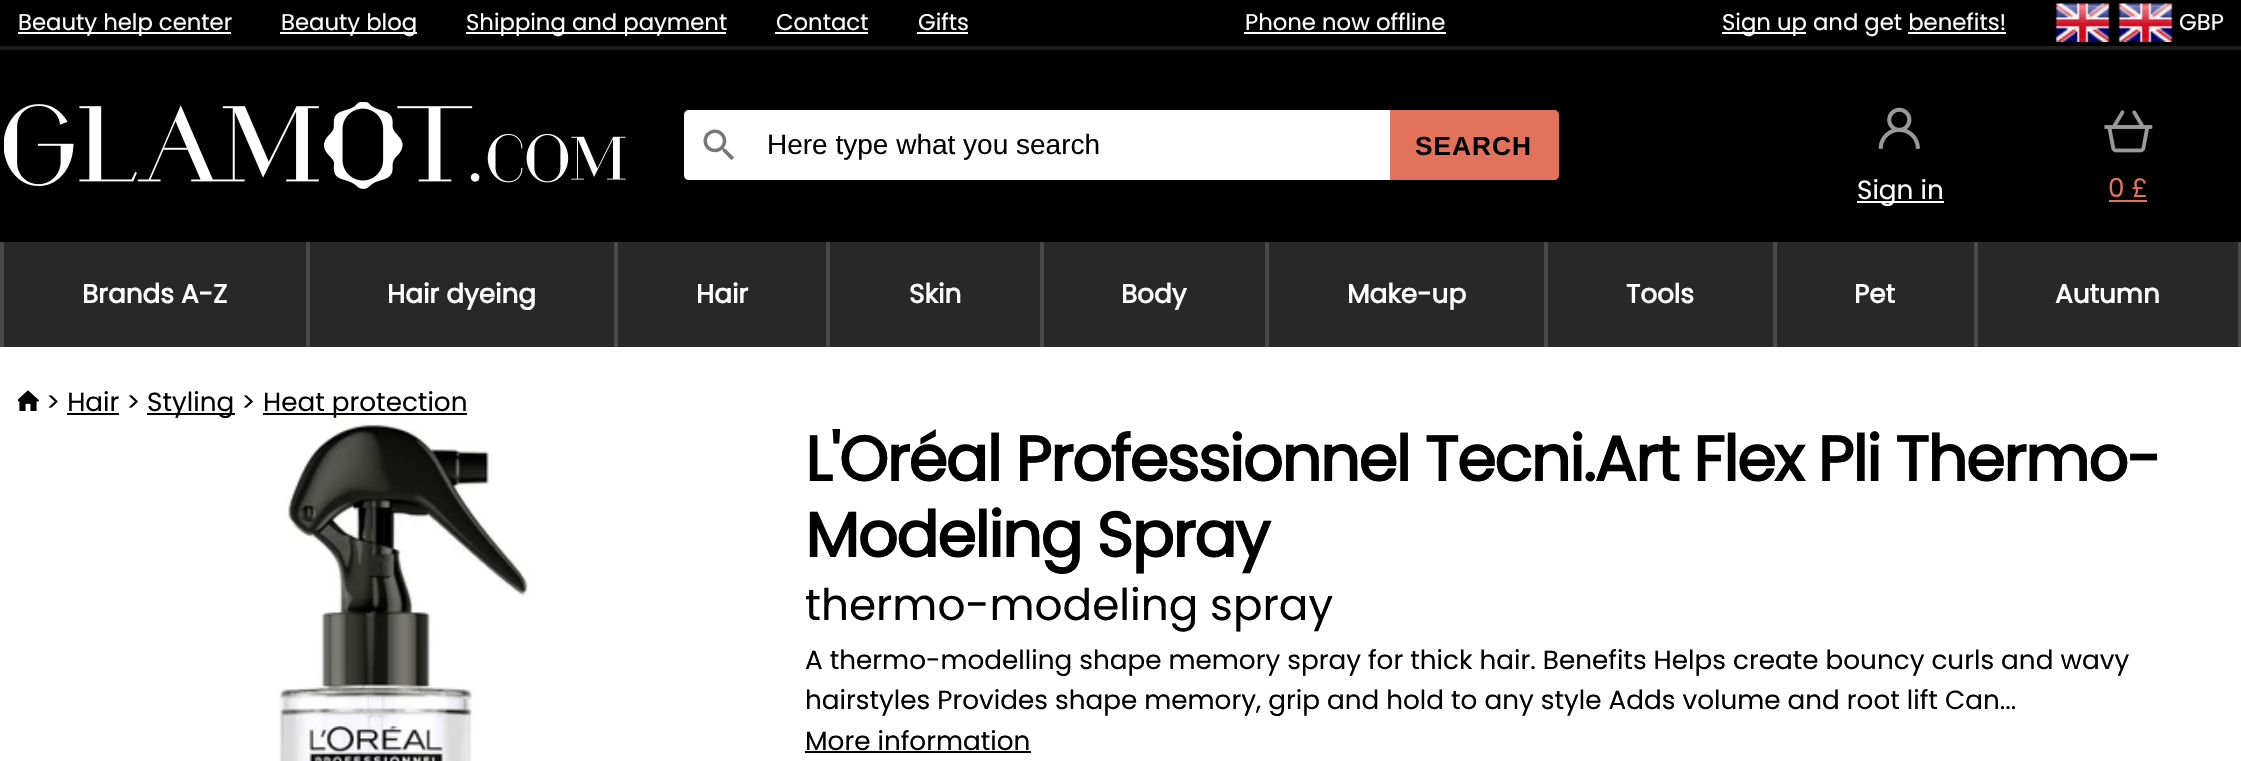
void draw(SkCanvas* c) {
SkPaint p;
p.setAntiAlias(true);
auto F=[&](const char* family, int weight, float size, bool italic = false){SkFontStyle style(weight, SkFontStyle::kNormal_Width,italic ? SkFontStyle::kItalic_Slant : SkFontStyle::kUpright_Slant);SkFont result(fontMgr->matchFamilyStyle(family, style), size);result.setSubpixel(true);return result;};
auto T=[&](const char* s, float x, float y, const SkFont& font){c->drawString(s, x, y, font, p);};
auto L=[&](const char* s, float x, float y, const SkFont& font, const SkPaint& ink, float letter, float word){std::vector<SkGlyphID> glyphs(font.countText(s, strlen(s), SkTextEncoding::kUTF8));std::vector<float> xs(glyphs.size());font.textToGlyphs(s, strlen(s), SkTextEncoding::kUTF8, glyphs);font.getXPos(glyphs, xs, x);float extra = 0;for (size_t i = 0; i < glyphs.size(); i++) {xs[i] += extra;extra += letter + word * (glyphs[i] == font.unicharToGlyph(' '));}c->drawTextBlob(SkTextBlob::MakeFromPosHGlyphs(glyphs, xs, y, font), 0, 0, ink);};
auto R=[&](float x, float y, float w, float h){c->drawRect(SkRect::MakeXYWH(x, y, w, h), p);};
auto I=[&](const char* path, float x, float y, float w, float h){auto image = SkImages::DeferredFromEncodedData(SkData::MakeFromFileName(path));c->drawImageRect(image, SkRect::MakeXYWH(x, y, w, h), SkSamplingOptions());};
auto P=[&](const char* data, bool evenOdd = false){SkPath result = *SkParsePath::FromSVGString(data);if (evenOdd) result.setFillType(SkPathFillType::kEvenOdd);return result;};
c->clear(0xffffffff);
p.setColor(0xff000000);
R(0,0,2241,242);
p.setColor(0xff1e1e1e);
R(0,46,2241,4);
p.setColor(0xffffffff);
R(18,32,213,2);
auto f1 = F("Poppins",400,22.75);
T("Beauty help center",18,30,f1);
R(280,32,137,2);
T("Beauty blog",281,30,f1);
R(466,32,260,2);
T("Shipping and payment",466,30,f1);
T("Contact",776,30,f1);
R(775,32,93,2);
T("Gifts",918,30,f1);
R(917,32,51,2);
T("Phone now offline",1245,30,f1);
R(1244,32,202,2);
R(1722,32,84,2);
T("Sign up and get benefits!",1722,30,f1);
R(1908,32,98,2);
I("1.png",2055,3,55,39);
I("2.png",2118,3,55,39);
T("GBP",2179,30,f1);
I("3.png",4,102,622,87);
c->drawPath(P("M689 110h65v70h-65c-3 0-5-2-5-5v-60c0-3 2-5 5-5z"),p);
I("4.png",703,129,31,31);
R(754,110,636,70);
auto f2 = F("Liberation Sans",400,28);
p.setColor(0xff000000);
T("Here type what you search",767,154,f2);
p.setColor(0xffe2725b);
c->drawPath(P("M1390 110h164c3 0 5 2 5 5v60c0 3-2 5-5 5h-164z"),p);
auto f3 = F("Liberation Sans",700,26.25);
p.setColor(0xff000000);
L("SEARCH",1415,155,f3,p,1,0);
I("5.png",1878,107,42,42);
p.setColor(0xffffffff);
R(1857,201,87,2);
auto f4 = F("Poppins",400,26.25);
T("Sign in",1857,199,f4);
I("6.png",2104,110,49,43);
p.setColor(0xffe2725b);
T("0 £",2108,197,f4);
R(2109,200,38,2);
p.setColor(0xff282828);
R(4,242,2234,105);
p.setColor(0xff494949);
R(2238,242,3,105);
R(0,242,4,105);
auto f5 = F("Poppins",700,26.25);
p.setColor(0xffffffff);
T("Brands A-Z",82,303,f5);
p.setColor(0xff494949);
R(306,242,4,105);
p.setColor(0xffffffff);
T("Hair dyeing",387,303,f5);
p.setColor(0xff494949);
R(614,242,4,105);
p.setColor(0xffffffff);
T("Hair",696,303,f5);
p.setColor(0xff494949);
R(826,242,4,105);
p.setColor(0xffffffff);
T("Skin",909,303,f5);
p.setColor(0xff494949);
R(1040,242,4,105);
p.setColor(0xffffffff);
T("Body",1121,303,f5);
p.setColor(0xff494949);
R(1265,242,4,105);
p.setColor(0xffffffff);
T("Make-up",1347,303,f5);
p.setColor(0xff494949);
R(1544,242,4,105);
p.setColor(0xffffffff);
T("Tools",1626,303,f5);
p.setColor(0xff494949);
R(1773,242,4,105);
p.setColor(0xffffffff);
T("Pet",1854,303,f5);
p.setColor(0xff494949);
R(1974,242,4,105);
p.setColor(0xffffffff);
T("Autumn",2055,303,f5);
I("7.png",18,390,21,21);
p.setColor(0xff000000);
T("> Hair >",46,411,f4);
R(147,413,88,2);
T("Styling >",147,411,f4);
R(263,413,204,2);
T("Heat protection",263,411,f4);
R(67,413,52,2);
I("8.png",279,422,251,339);
auto f6 = F("Poppins",700,63);
L("L'Oréal Professionnel Tecni.Art Flex Pli Thermo-",805,481,f6,p,-1.75,0);
L("Modeling Spray",805,557,f6,p,-1.75,0);
auto f7 = F("Poppins",400,43.75);
T("thermo-modeling spray",805,620,f7);
T("A thermo-modelling shape memory spray for thick hair. Benefits Helps create bouncy curls and wavy",805,669,f4);
T("hairstyles Provides shape memory, grip and hold to any style Adds volume and root lift Can...",805,709,f4);
T("More information",805,750,f4);
R(805,751,226,2);
}
